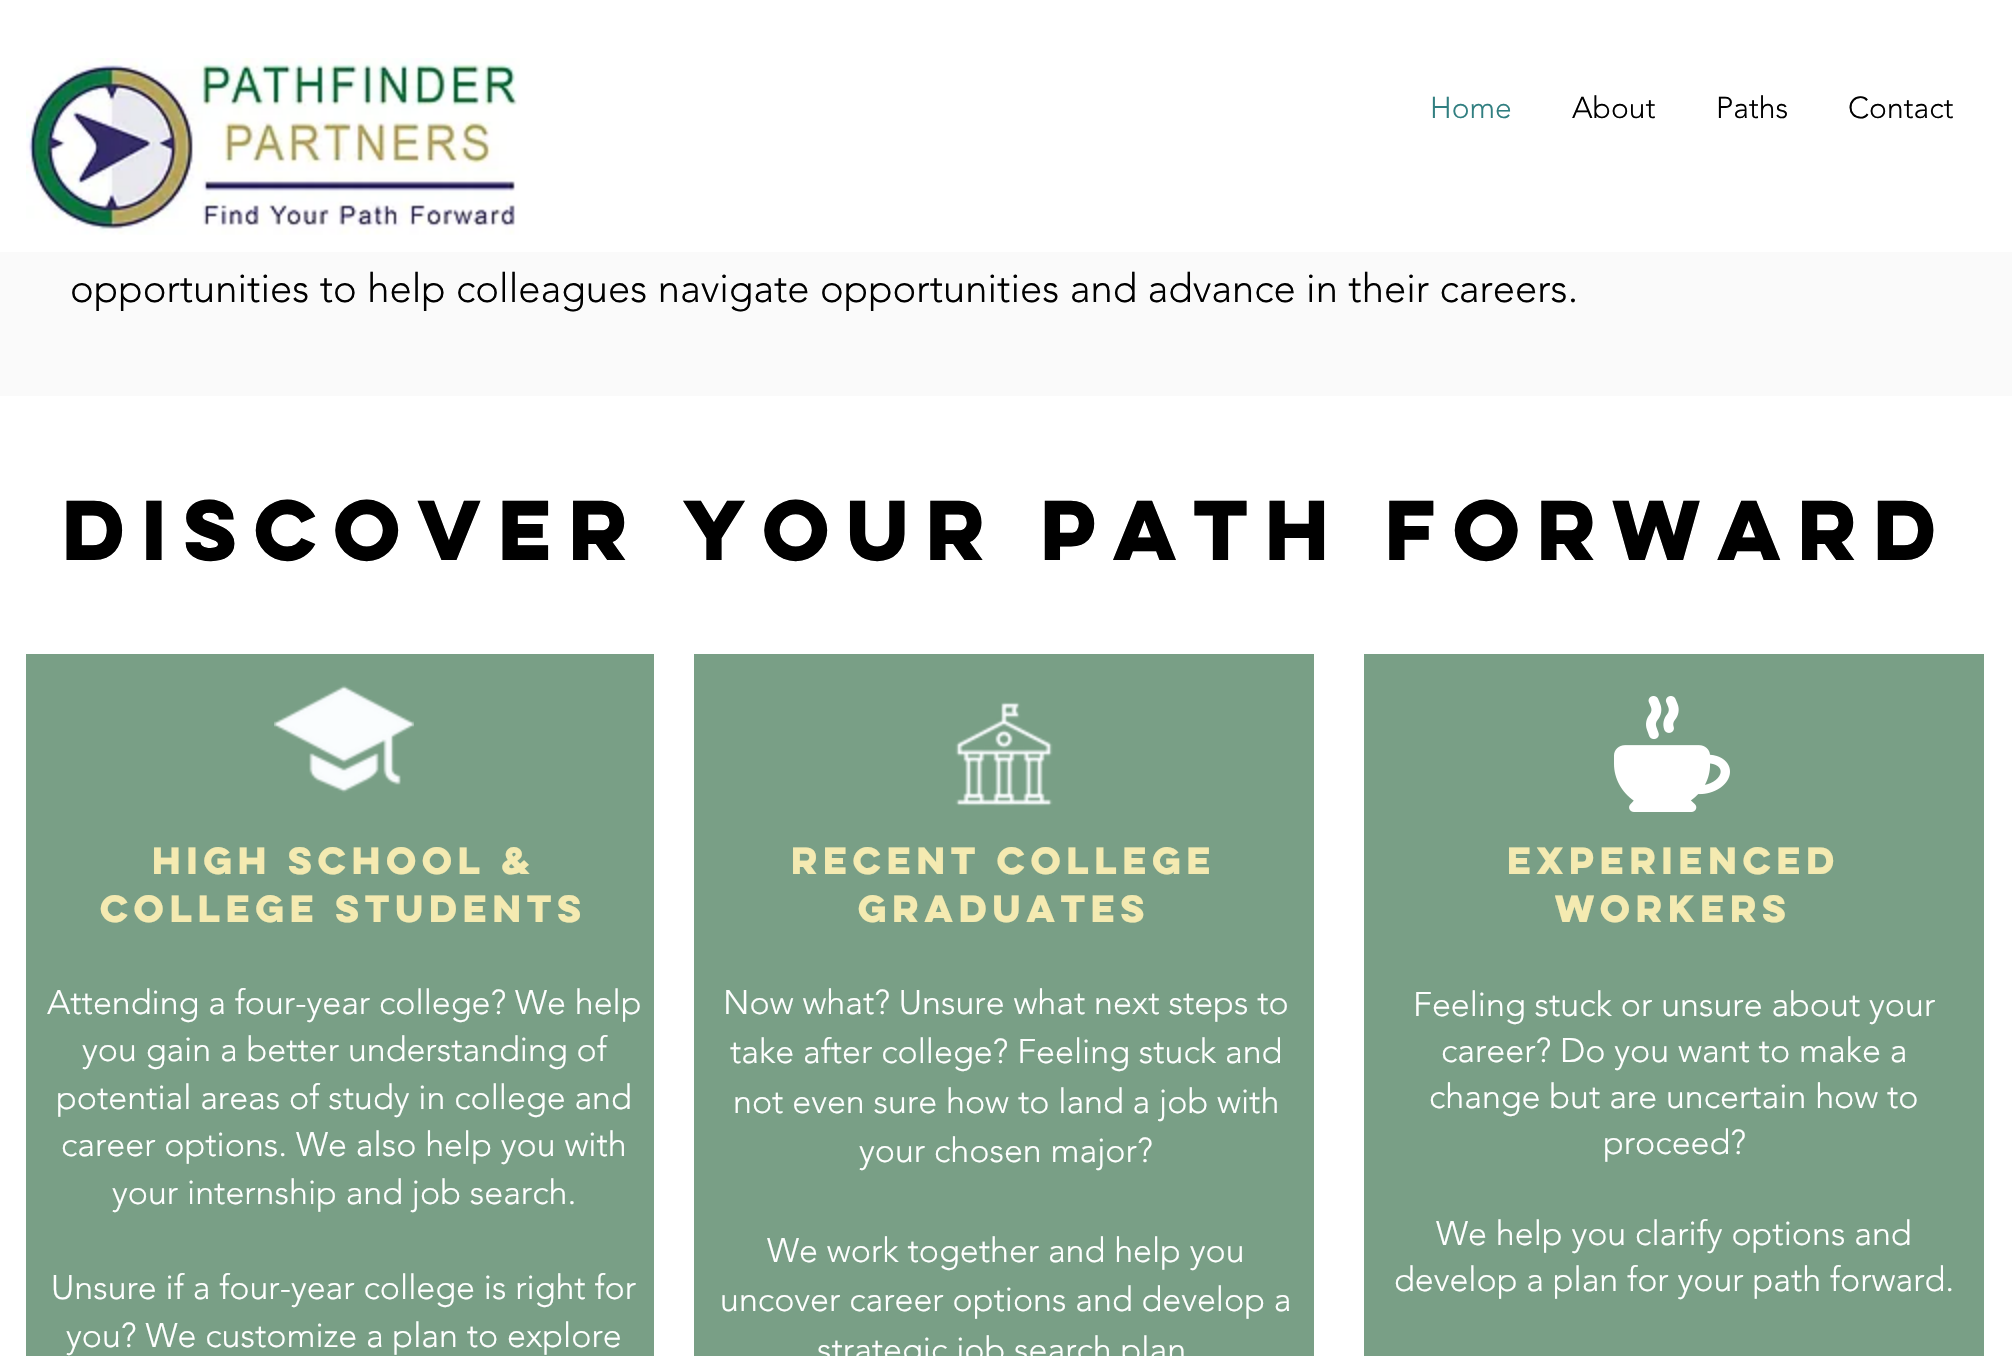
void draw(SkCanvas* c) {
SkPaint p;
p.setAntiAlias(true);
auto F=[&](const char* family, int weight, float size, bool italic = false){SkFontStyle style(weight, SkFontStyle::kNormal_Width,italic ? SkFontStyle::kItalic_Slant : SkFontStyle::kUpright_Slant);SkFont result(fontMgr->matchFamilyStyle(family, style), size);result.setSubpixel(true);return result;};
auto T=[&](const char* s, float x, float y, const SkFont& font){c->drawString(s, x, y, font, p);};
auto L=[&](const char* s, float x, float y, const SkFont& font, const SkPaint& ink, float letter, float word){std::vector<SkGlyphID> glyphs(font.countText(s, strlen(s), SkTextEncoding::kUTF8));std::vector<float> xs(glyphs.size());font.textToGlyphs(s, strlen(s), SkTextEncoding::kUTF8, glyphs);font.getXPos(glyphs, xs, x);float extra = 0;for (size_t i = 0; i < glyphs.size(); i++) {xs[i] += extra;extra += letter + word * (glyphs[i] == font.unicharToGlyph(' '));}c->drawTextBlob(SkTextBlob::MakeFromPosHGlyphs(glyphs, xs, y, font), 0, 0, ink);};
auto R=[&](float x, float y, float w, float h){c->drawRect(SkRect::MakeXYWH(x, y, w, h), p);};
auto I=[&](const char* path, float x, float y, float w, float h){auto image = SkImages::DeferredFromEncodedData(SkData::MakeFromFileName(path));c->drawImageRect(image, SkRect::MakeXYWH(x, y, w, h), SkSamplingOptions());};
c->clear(0xffffffff);
I("1.png",26,58,494,177);
auto f1 = F("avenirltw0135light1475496",300,30);
p.setColor(0xff317f81);
T("Home",1430,118,f1);
p.setColor(0xff000000);
T("About",1572,118,f1);
T("Paths",1716,118,f1);
T("Contact",1848,118,f1);
p.setColor(0xfffafafa);
R(0,252,2012,144);
auto f2 = F("avenirltw0135light1475496",300,40);
p.setColor(0xff000000);
T("opportunities to help colleagues navigate opportunities and advance in their careers.",70,302,f2);
auto f3 = F("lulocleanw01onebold",700,76);
T("discover your path forward",62,560,f3);
p.setColor(0xff799f86);
R(26,654,628,702);
I("2.png",274,685,140,108);
auto f4 = F("lulocleanw01onebold",700,34);
p.setColor(0xfff4eab1);
L("High school &",152,874,f4,p,-1.75,0);
L("College students",100,922,f4,p,-1.75,0);
auto f5 = F("avenirltw0135light1475496",300,34);
p.setColor(0xffffffff);
T("Attending a four-year college? We help",47,1014,f5);
T("you gain a better understanding of",82,1061,f5);
T("potential areas of study in college and",56,1109,f5);
T("career options. We also help you with",61,1156,f5);
T("your internship and job search.",112,1204,f5);
T("Unsure if a four-year college is right for",51,1299,f5);
T("you? We customize a plan to explore",66,1347,f5);
p.setColor(0xff799f86);
R(694,654,620,702);
I("3.png",955,702,98,104);
p.setColor(0xfff4eab1);
L("recent college",791,874,f4,p,-1.75,0);
L("graduates",858,922,f4,p,-1.75,0);
p.setColor(0xffffffff);
T("Now what? Unsure what next steps to",723,1014,f5);
T("take after college? Feeling stuck and",730,1063,f5);
T("not even sure how to land a job with",733,1113,f5);
T("your chosen major?",859,1162,f5);
T("We work together and help you",767,1262,f5);
T("uncover career options and develop a",720,1311,f5);
T("strategic job search plan",817,1361,f5);
p.setColor(0xff799f86);
R(1364,654,620,702);
I("4.png",1614,696,116,116);
p.setColor(0xfff4eab1);
L("experienced",1507,874,f4,p,-1.75,0);
L("workers",1555,922,f4,p,-1.75,0);
p.setColor(0xffffffff);
T("Feeling stuck or unsure about your",1413,1016,f5);
T("career? Do you want to make a",1441,1062,f5);
T("change but are uncertain how to",1429,1108,f5);
T("proceed?",1603,1154,f5);
T("We help you clarify options and",1436,1245,f5);
T("develop a plan for your path forward.",1394,1291,f5);
}
